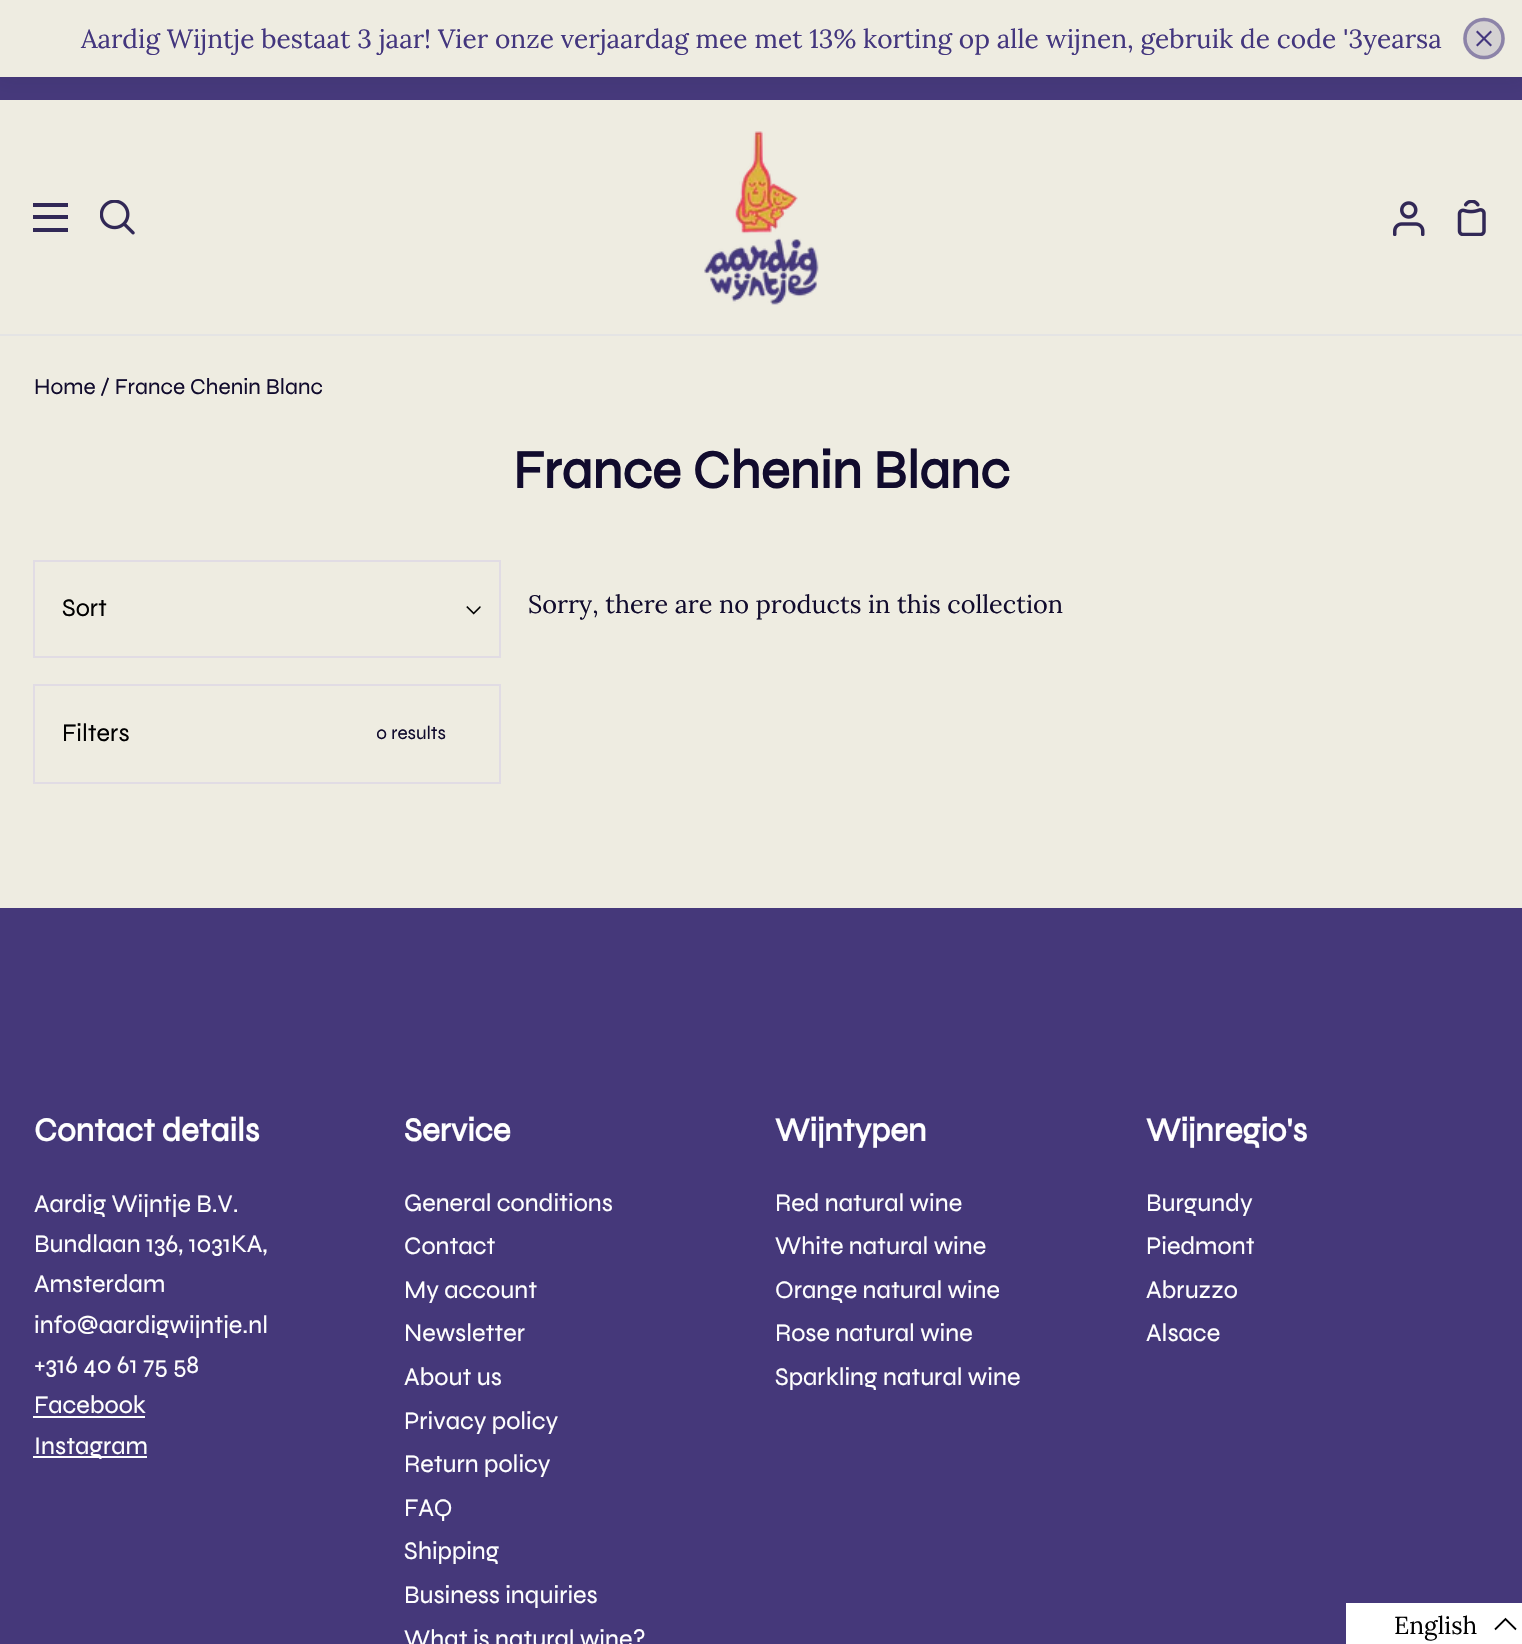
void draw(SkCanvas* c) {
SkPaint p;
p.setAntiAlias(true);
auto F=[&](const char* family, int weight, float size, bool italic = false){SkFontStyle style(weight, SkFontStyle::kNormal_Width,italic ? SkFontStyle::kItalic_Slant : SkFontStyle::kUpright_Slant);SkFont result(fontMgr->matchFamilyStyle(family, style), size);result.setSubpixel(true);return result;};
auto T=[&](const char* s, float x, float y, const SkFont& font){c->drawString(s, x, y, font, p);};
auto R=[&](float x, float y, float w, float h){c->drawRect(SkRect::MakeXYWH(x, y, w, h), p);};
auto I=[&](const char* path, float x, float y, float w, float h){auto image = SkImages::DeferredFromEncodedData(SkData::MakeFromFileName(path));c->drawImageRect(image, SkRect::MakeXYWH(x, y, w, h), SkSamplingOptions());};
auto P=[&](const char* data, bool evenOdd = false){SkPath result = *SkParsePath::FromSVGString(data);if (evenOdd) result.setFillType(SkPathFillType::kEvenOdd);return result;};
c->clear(0xffeeece1);
p.setColor(0xff45387a);
R(0,77,1522,23);
p.setColor(0x1a212b36);
p.setMaskFilter(SkMaskFilter::MakeBlur(kNormal_SkBlurStyle, 9));
c->drawRect(SkRect::MakeXYWH(0,0,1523,77),p);
p.setMaskFilter(nullptr);
p.setColor(0xffeeece1);
R(0,0,1522,77);
auto f1 = F("Lora",400,26.25);
p.setColor(0xff43367e);
T("Aardig Wijntje bestaat 3 jaar! Vier onze verjaardag mee met 13% korting op alle wijnen, gebruik de code '3yearsa",81,48,f1);
p.setColor(0xffd4d1d2);
c->drawCircle(1484,38.5,21,p);
p.setStroke(true);
p.setStrokeWidth(3.5);
p.setColor(0x8043367e);
c->drawCircle(1484,38.5,19,p);
p.setStroke(false);
p.setColor(0xff43367e);
c->drawPath(P("M1492 32l-1.5-1.5l-6.5 6.5l-6.5-6.5l-1.5 1.5l6.5 6.5l-6.5 6.5l1.5 1.5l6.5-6.5l6.5 6.5l1.5-1.5l-6.5-6.5z"),p);
p.setColor(0xffe4e4e4);
R(0,334,1522,2);
p.setColor(0xff312856);
R(33,203,35,4);
R(33,215,35,4);
R(33,228,35,4);
I("1.png",100,200,35,35);
I("2.png",704,131,115,174);
I("3.png",1393,201,32,35);
I("4.png",1457,200,29,36);
auto f2 = F("Syne",400,22.75);
p.setColor(0xff110b2d);
T("Home / France Chenin Blanc",34,394,f2);
auto f3 = F("Syne",700,54.25);
T("France Chenin Blanc",513,488,f3);
p.setStroke(true);
p.setStrokeWidth(2);
p.setColor(0xffe1dce4);
c->drawRect(SkRect::MakeXYWH(34,561,466,96),p);
auto f4 = F("Syne",400,25.2);
p.setStroke(false);
p.setColor(0xff000000);
T("Sort",62,616,f4);
I("5.png",466,606,15,9);
p.setStroke(true);
p.setColor(0xffe1dce4);
c->drawRect(SkRect::MakeXYWH(34,685,466,98),p);
p.setStroke(false);
p.setColor(0xff000000);
T("Filters",62,741,f4);
auto f5 = F("Syne",400,19);
p.setColor(0xff110b2d);
T("0 results",376,739,f5);
auto f6 = F("Lora",400,25.2);
T("Sorry, there are no products in this collection",528,613,f6);
p.setColor(0xff45387a);
R(0,908,1522,736);
auto f7 = F("Syne",700,33.25);
p.setColor(0xffffffff);
T("Contact details",34,1141,f7);
T("Aardig Wijntje B.V.",34,1212,f4);
T("Bundlaan 136, 1031KA,",34,1252,f4);
T("Amsterdam",34,1292,f4);
T("info@aardigwijntje.nl",34,1333,f4);
T("+316 40 61 75 58",34,1373,f4);
T("Facebook",34,1413,f4);
R(33,1416,112,2);
R(33,1456,114,2);
T("Instagram",34,1454,f4);
T("Service",404,1141,f7);
T("General conditions",404,1211,f4);
T("Contact",404,1254,f4);
T("My account",404,1298,f4);
T("Newsletter",404,1341,f4);
T("About us",404,1385,f4);
T("Privacy policy",404,1429,f4);
T("Return policy",404,1472,f4);
T("FAQ",404,1516,f4);
T("Shipping",404,1559,f4);
T("Business inquiries",404,1603,f4);
T("What is natural wine?",404,1647,f4);
T("Wijntypen",775,1141,f7);
T("Red natural wine",775,1211,f4);
T("White natural wine",775,1254,f4);
T("Orange natural wine",775,1298,f4);
T("Rose natural wine",775,1341,f4);
T("Sparkling natural wine",775,1385,f4);
T("Wijnregio's",1146,1141,f7);
T("Burgundy",1146,1211,f4);
T("Piedmont",1146,1254,f4);
T("Abruzzo",1146,1298,f4);
T("Alsace",1146,1341,f4);
R(1346,1603,176,41);
auto f8 = F("Lora",400,24.5);
p.setColor(0xff000000);
T("English",1394,1634,f8);
p.setStroke(true);
p.setStrokeWidth(1.8);
c->drawPath(P("M1516 1629.5l-10.5-10.5l-10.5 10.5"),p);
}
